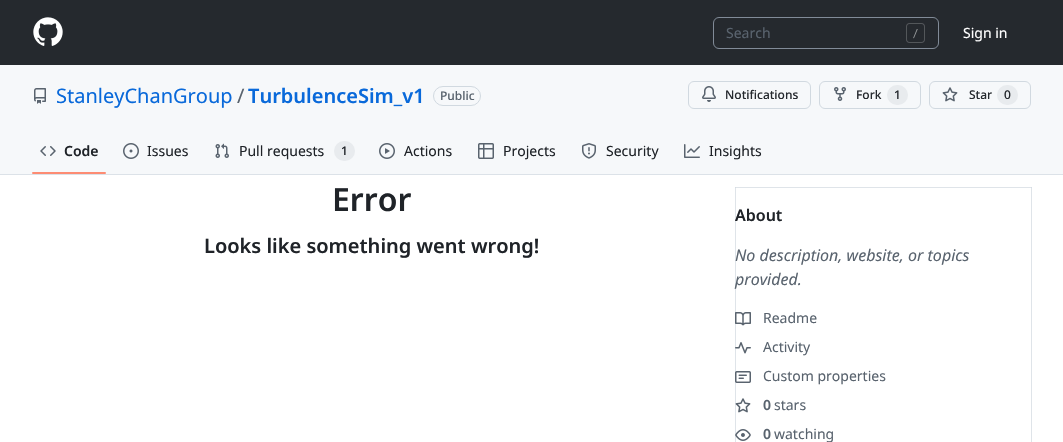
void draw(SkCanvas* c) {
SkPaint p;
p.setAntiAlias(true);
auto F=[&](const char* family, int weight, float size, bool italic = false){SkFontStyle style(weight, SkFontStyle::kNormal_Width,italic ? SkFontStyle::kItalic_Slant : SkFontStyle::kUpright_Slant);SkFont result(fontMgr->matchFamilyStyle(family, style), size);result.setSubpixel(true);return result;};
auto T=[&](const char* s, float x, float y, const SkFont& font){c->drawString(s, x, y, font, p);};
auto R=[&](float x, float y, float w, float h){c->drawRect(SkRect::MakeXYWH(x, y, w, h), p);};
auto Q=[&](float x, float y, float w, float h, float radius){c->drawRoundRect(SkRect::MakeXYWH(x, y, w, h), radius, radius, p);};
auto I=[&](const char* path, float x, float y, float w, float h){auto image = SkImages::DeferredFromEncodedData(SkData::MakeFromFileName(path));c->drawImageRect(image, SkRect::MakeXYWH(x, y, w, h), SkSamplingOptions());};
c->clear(0xffffffff);
p.setColor(0xffdfe4e9);
R(735,187,1,255);
R(1031,187,1,255);
p.setColor(0xff25292e);
R(0,0,1063,65);
I("1.png",33,17,30,29);
p.setStroke(true);
p.setStrokeWidth(1);
p.setColor(0xff818b98);
c->drawRoundRect(SkRect::MakeXYWH(713.5,17.5,225,31),5.5,5.5,p);
auto f1 = F("Noto Sans",400,14);
p.setStroke(false);
p.setColor(0xff59636e);
T("Search",726,38,f1);
I("2.png",906,23,19,20);
p.setColor(0xffffffff);
T("Sign in",963,38,f1);
p.setColor(0xfff6f8fa);
R(0,65,1063,109);
I("3.png",34,88,12,16);
auto f2 = F("Noto Sans",400,20);
p.setColor(0xff0969da);
T("StanleyChanGroup",56,103,f2);
p.setColor(0xff59636e);
T("/",237,103,f2);
auto f3 = F("Noto Sans",600,20);
p.setColor(0xff0969da);
T("TurbulenceSim_v1",248,103,f3);
p.setStroke(true);
p.setColor(0xffd1d9e0);
c->drawRoundRect(SkRect::MakeXYWH(433.5,86.5,47,19),9.5,9.5,p);
auto f4 = F("Noto Sans",500,12);
p.setStroke(false);
p.setColor(0xff59636e);
T("Public",440,100,f4);
p.setStroke(true);
p.setColor(0xffd1d9e0);
c->drawRoundRect(SkRect::MakeXYWH(688.5,81.5,122,27),5.5,5.5,p);
I("4.png",702,86,14,16);
p.setStroke(false);
p.setColor(0xff25292e);
T("Notifications",725,99,f4);
p.setStroke(true);
p.setColor(0xffd1d9e0);
c->drawRoundRect(SkRect::MakeXYWH(819.5,81.5,101,27),5.5,5.5,p);
I("5.png",834,87,12,14);
p.setStroke(false);
p.setColor(0xff25292e);
T("Fork",856,99,f4);
p.setColor(0xffe8ebee);
Q(887,85,21,20,10);
p.setColor(0xff25292e);
T("1",894,99,f4);
p.setStroke(true);
p.setColor(0xffd1d9e0);
c->drawRoundRect(SkRect::MakeXYWH(929.5,81.5,101,27),5.5,5.5,p);
I("6.png",942,87,16,15);
p.setStroke(false);
p.setColor(0xff25292e);
T("Star",969,99,f4);
p.setColor(0xffe8ebee);
Q(997,85,21,20,10);
p.setColor(0xff25292e);
T("0",1004,99,f4);
p.setColor(0xffdce2e8);
R(0,174,1063,1);
I("7.png",40,146,16,10);
auto f5 = F("Noto Sans",600,14);
p.setColor(0xff1f2328);
T("Code",64,156,f5);
p.setColor(0xfffd8c73);
Q(32,172,74,2,1);
I("8.png",123,143,16,16);
p.setColor(0xff1f2328);
T("Issues",147,156,f1);
I("9.png",215,143,14,15);
T("Pull requests",239,156,f1);
p.setColor(0xffe8ebee);
Q(334,141,21,20,10);
p.setColor(0xff1f2328);
T("1",341,155,f4);
I("10.png",379,143,16,16);
T("Actions",404,156,f1);
I("11.png",478,143,16,16);
T("Projects",503,156,f1);
I("12.png",582,143,14,16);
T("Security",606,156,f1);
I("13.png",684,144,16,14);
T("Insights",709,156,f1);
auto f6 = F("Noto Sans",600,32);
T("Error",332,211,f6);
T("Looks like something went wrong!",204,253,f3);
p.setColor(0xffdfe4e9);
R(735,187,297,1);
p.setColor(0xffd5dce3);
R(735,187,1,1);
R(1031,187,1,1);
auto f7 = F("Noto Sans",600,16);
p.setColor(0xff1f2328);
T("About",735,221,f7);
auto f8 = F("Noto Sans",400,16,true);
p.setColor(0xff59636e);
T("No description, website, or topics",735,261,f8);
T("provided.",735,285,f8);
I("14.png",735,312,16,14);
T("Readme",763,323,f1);
I("15.png",735,342,16,12);
T("Activity",763,352,f1);
I("16.png",735,371,16,12);
T("Custom properties",763,381,f1);
I("17.png",735,398,16,15);
T("0",763,410,f5);
T("stars",774,410,f1);
I("18.png",735,429,16,12);
T("0",763,439,f5);
T("watching",774,439,f1);
}
